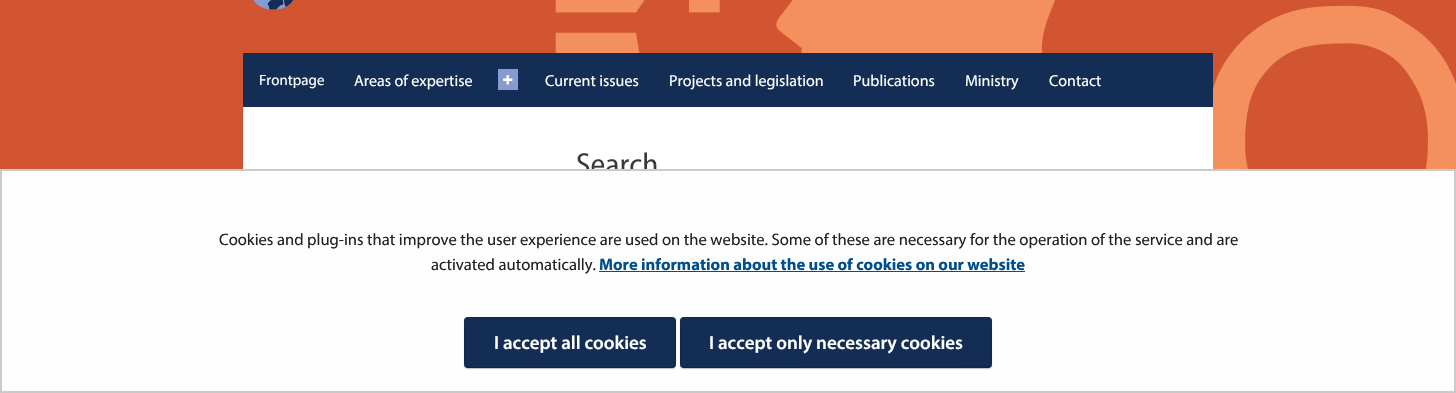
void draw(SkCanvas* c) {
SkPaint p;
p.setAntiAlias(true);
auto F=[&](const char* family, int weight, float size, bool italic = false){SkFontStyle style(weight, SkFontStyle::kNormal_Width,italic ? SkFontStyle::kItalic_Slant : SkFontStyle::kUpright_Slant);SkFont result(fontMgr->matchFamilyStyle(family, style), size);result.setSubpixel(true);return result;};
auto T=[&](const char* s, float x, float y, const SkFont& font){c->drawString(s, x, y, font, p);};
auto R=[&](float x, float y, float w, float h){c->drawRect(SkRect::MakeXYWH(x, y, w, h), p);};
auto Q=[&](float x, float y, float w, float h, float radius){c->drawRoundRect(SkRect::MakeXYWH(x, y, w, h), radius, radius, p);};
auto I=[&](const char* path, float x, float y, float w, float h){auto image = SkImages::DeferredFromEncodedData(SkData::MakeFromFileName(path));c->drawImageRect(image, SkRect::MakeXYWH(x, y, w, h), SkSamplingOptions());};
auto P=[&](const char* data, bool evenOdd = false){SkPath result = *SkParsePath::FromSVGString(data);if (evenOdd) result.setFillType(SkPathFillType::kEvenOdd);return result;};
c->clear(0xffd25532);
I("1.png",555,0,901,169);
I("2.png",253,0,41,10);
p.setColor(0xff142d55);
R(243,53,970,54);
auto f1 = F("Myriad",400,15);
p.setColor(0xffffffff);
T("Frontpage",259,85,f1);
auto f2 = F("Myriad",400,16);
T("Areas of expertise",354,86,f2);
p.setColor(0xff869bd1);
R(498,69,20,21);
I("3.png",503,75,10,10);
p.setColor(0xffffffff);
T("Current issues",545,86,f2);
T("Projects and legislation",669,86,f2);
T("Publications",853,86,f2);
T("Ministry",965,86,f2);
T("Contact",1049,86,f2);
R(243,107,970,62);
I("4.png",577,152,80,17);
p.setColor(0xfffefefe);
c->drawRect(SkRect::MakeXYWH(1,170,1454,222),p);
p.setStroke(true);
p.setStrokeWidth(2);
p.setColor(0xffcacaca);
c->drawRect(SkRect::MakeXYWH(1,170,1454,222),p);
auto f3 = F("Myriad",400,16.6);
p.setStroke(false);
p.setColor(0xff212121);
T("Cookies and plug-ins that improve the user experience are used on the website. Some of these are necessary for the operation of the service and are",219,245,f3);
T("activated automatically.",431,270,f3);
auto f4 = F("Myriad",700,16.6);
p.setColor(0xff004f8c);
T("More information about the use of cookies on our website",599,270,f4);
R(599,271,426,1);
p.setColor(0x40000000);
p.setMaskFilter(SkMaskFilter::MakeBlur(kNormal_SkBlurStyle, .5));
c->drawRoundRect(SkRect::MakeXYWH(464,318,212,51),4,4,p);
p.setMaskFilter(nullptr);
p.setColor(0xff142d55);
Q(464,317,212,51,4);
p.setStroke(true);
p.setStrokeWidth(1);
p.setColor(0x40000000);
c->drawPath(P("M674.5 366.5c-.5 .5-1.5 1-2.5 1h-204c-1 0-2-.5-2.5-1"),p);
p.setColor(0x1a000000);
c->drawPath(P("M465.5 366.5c-.5-.5-1-1.5-1-2.5v-43c0-1 .5-2 1-2.5c.5-.5 1.5-1 2.5-1h204c1 0 2 .5 2.5 1c.5 .5 1 1.5 1 2.5v43c0 1-.5 2-1 2.5"),p);
auto f5 = F("Myriad",600,19);
p.setStroke(false);
p.setColor(0xffffffff);
T("I accept all cookies",494,349,f5);
p.setColor(0x40000000);
p.setMaskFilter(SkMaskFilter::MakeBlur(kNormal_SkBlurStyle, .5));
c->drawRoundRect(SkRect::MakeXYWH(680,318,312,51),4,4,p);
p.setMaskFilter(nullptr);
p.setColor(0xff142d55);
Q(680,317,312,51,4);
p.setStroke(true);
p.setColor(0x40000000);
c->drawPath(P("M990.5 366.5l-1 .5l-255 .5h-50.5l-2.5-1"),p);
p.setColor(0x1a000000);
c->drawPath(P("M681.5 366.5c-.5-.5-1-1.5-1-2.5v-43c0-1 .5-2 1-2.5c.5-.5 1.5-1 2.5-1h304c1 0 2 .5 2.5 1c.5 .5 1 1.5 1 2.5v43c0 1-.5 2-1 2.5"),p);
p.setStroke(false);
p.setColor(0xffffffff);
T("I accept only necessary cookies",709,349,f5);
}
